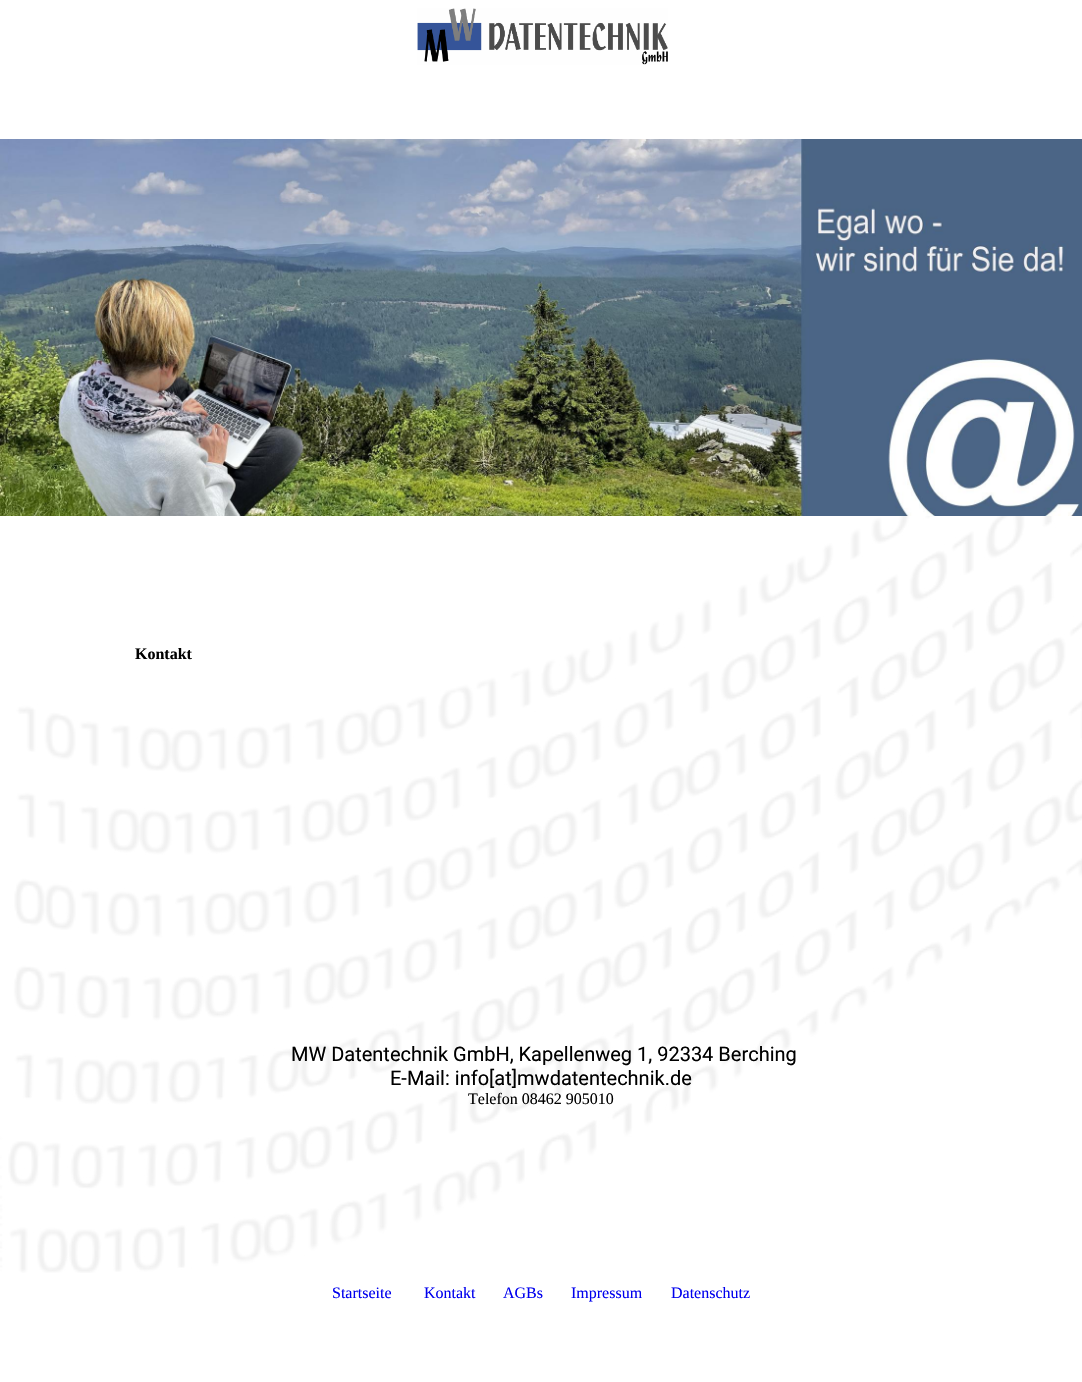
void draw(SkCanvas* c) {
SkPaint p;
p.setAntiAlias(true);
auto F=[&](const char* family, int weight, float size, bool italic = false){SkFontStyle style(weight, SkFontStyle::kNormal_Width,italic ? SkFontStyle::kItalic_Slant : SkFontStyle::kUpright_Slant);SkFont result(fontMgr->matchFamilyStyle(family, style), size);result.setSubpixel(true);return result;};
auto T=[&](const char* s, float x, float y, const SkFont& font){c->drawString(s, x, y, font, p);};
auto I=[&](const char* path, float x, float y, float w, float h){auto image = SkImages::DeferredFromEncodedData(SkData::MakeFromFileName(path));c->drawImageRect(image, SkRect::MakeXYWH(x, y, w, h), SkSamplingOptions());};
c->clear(0xffffffff);
I("1.png",0,516,1082,757);
I("2.png",417,8,251,57);
I("3.png",0,139,1082,377);
auto f1 = F("Liberation Serif",700,16);
p.setColor(0xff000000);
T("Kontakt",135,659,f1);
auto f2 = F("Roboto",400,20);
T("MW Datentechnik GmbH, Kapellenweg 1, 92334 Berching",291,1061,f2);
T("E-Mail: info[at]mwdatentechnik.de",390,1085,f2);
auto f3 = F("Liberation Serif",400,16);
T("Telefon 08462 905010",468,1104,f3);
p.setColor(0xff0000ee);
T("Startseite",332,1298,f3);
T("Kontakt",424,1298,f3);
T("AGBs",503,1298,f3);
T("Impressum",571,1298,f3);
T("Datenschutz",671,1298,f3);
}
